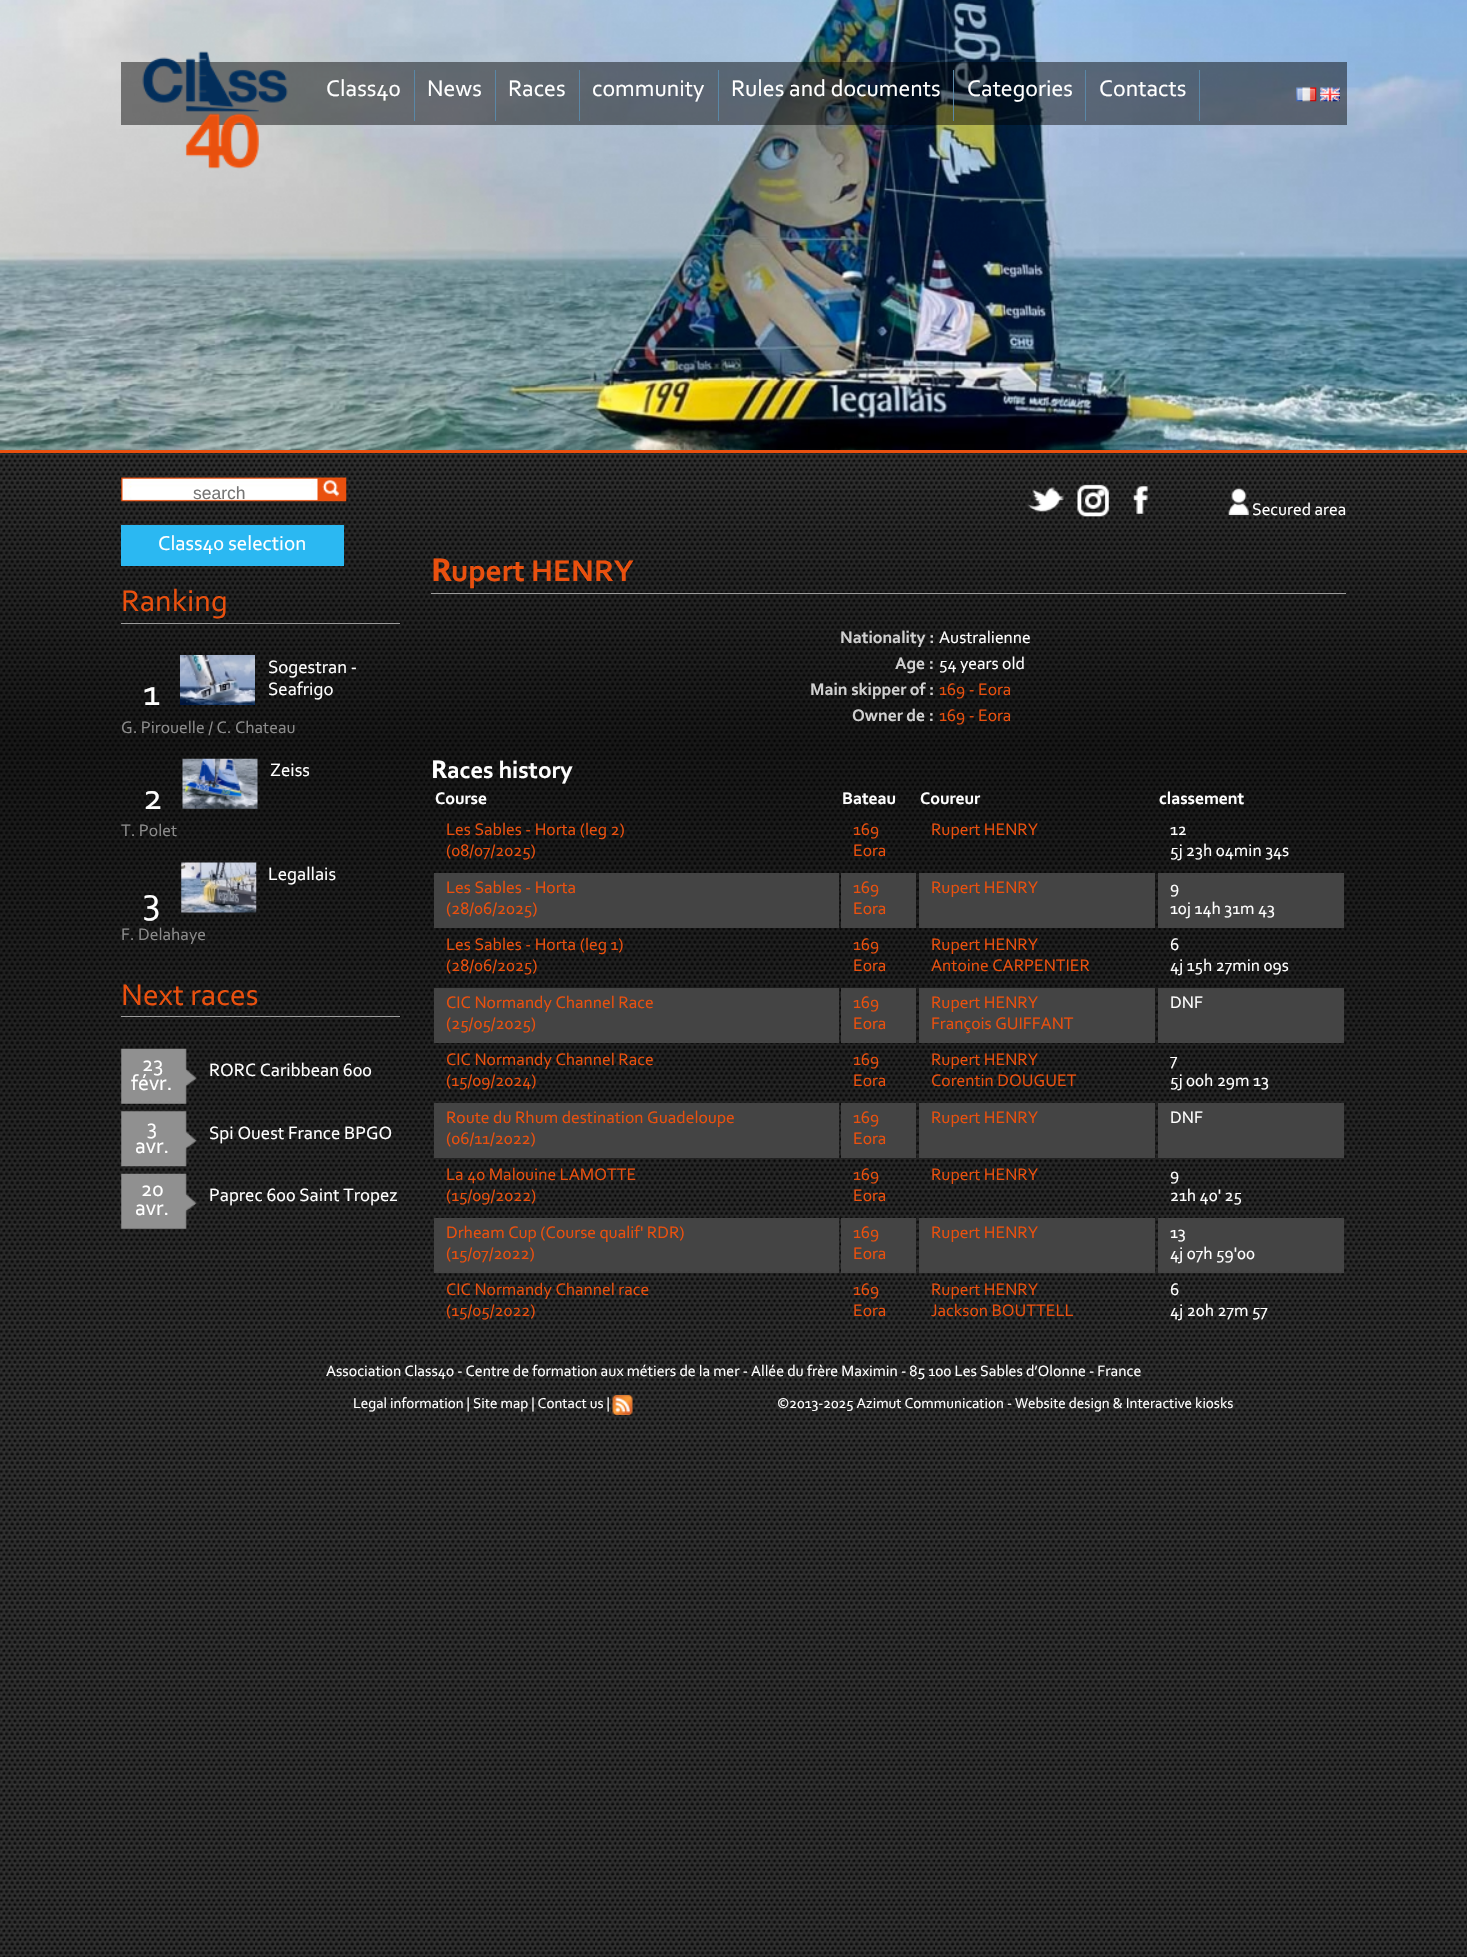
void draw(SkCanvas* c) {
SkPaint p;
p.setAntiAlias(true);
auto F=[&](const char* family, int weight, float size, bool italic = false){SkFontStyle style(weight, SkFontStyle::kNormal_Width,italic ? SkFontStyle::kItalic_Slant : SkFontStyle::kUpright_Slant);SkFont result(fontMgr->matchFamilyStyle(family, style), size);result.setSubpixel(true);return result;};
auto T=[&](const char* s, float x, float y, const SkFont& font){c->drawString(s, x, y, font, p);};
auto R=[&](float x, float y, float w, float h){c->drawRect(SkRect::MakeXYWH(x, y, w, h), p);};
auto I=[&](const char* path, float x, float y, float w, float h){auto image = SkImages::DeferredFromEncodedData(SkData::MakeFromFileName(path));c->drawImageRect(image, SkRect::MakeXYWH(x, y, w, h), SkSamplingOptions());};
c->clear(0xffffffff);
I("1.png",0,453,1467,1504);
p.setColor(0xffe9500e);
R(0,450,1467,3);
I("2.png",0,0,1467,450);
p.setColor(0x78000000);
R(121,62,1226,63);
I("3.png",142,51,146,118);
p.setColor(0xff5a88a7);
R(414,70,1,51);
auto f1 = F("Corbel",400,23.75);
p.setColor(0xffffffff);
T("Class40",326,96,f1);
p.setColor(0xff5a88a7);
R(495,70,1,51);
p.setColor(0xffffffff);
T("News",427,96,f1);
p.setColor(0xff5a88a7);
R(579,70,1,51);
p.setColor(0xffffffff);
T("Races",508,96,f1);
p.setColor(0xff5a88a7);
R(718,70,1,51);
p.setColor(0xffffffff);
T("community",592,96,f1);
p.setColor(0xff5a88a7);
R(953,70,1,51);
p.setColor(0xffffffff);
T("Rules and documents",731,96,f1);
p.setColor(0xff5a88a7);
R(1085,70,1,51);
p.setColor(0xffffffff);
T("Categories",967,96,f1);
p.setColor(0xff5a88a7);
R(1199,70,1,51);
p.setColor(0xffffffff);
T("Contacts",1099,96,f1);
I("4.png",1296,87,21,15);
I("5.png",1320,87,20,15);
I("6.png",121,477,226,25);
auto f2 = F("Liberation Sans",400,17.5);
p.setColor(0xff757575);
T("search",193,499,f2);
I("7.png",322,479,18,18);
p.setColor(0xff2bb8f2);
R(121,525,223,41);
auto f3 = F("Corbel",400,21);
p.setColor(0xffffffff);
T("Class40 selection",158,550,f3);
p.setColor(0xff9d9d9d);
R(121,623,279,1);
auto f4 = F("Corbel",400,31.5);
p.setColor(0xffe9500e);
T("Ranking",121,611,f4);
auto f5 = F("Corbel",400,38);
p.setColor(0xffffffff);
T("1",143,705,f5);
I("8.png",180,655,75,50);
auto f6 = F("Corbel",400,18.75);
T("Sogestran -",268,673,f6);
T("Seafrigo",268,695,f6);
auto f7 = F("Corbel",400,17.5);
p.setColor(0xff8b8b8b);
T("G. Pirouelle / C. Chateau",121,733,f7);
I("9.png",182,758,76,51);
p.setColor(0xffffffff);
T("Zeiss",270,776,f6);
T("2",143,809,f5);
p.setColor(0xff8b8b8b);
T("T. Polet",121,836,f7);
I("10.png",181,862,76,51);
p.setColor(0xffffffff);
T("Legallais",268,880,f6);
T("3",143,913,f5);
p.setColor(0xff8b8b8b);
T("F. Delahaye",121,940,f7);
p.setColor(0xff9d9d9d);
R(121,1016,279,1);
p.setColor(0xffe9500e);
T("Next races",121,1005,f4);
I("11.png",121,1048,76,56);
auto f8 = F("Corbel",400,22);
p.setColor(0xffffffff);
T("23",142,1071,f8);
T("févr.",131,1090,f8);
T("RORC Caribbean 600",209,1076,f6);
I("12.png",121,1111,76,56);
T("3",147,1134,f8);
T("avr.",135,1153,f8);
T("Spi Ouest France BPGO",209,1139,f6);
I("13.png",121,1173,76,56);
T("20",141,1196,f8);
T("avr.",135,1215,f8);
T("Paprec 600 Saint Tropez",209,1201,f6);
I("14.png",1027,487,37,25);
I("15.png",1077,484,32,33);
I("16.png",1133,486,15,28);
I("17.png",1228,488,21,27);
T("Secured area",1252,515,f7);
p.setColor(0xff9d9d9d);
R(431,593,915,1);
auto f9 = F("Noto Sans",700,31.5);
p.setColor(0xffe9500e);
T("R",431,581,f9);
auto f10 = F("Corbel",700,31.5);
T("upert HENRY",451,581,f10);
auto f11 = F("Corbel",700,17.5);
p.setColor(0xffd0d0d0);
T("Nationality :",840,643,f11);
p.setColor(0xffffffff);
T("Australienne",939,643,f7);
p.setColor(0xffd0d0d0);
T("Age :",895,669,f11);
p.setColor(0xffffffff);
T("54 years old",939,669,f7);
p.setColor(0xffd0d0d0);
T("Main skipper of :",810,695,f11);
p.setColor(0xffe9500e);
T("169 - Eora",939,695,f7);
p.setColor(0xffd0d0d0);
T("Owner de :",852,721,f11);
p.setColor(0xffe9500e);
T("169 - Eora",939,721,f7);
auto f12 = F("Noto Sans",700,24.5);
p.setColor(0xffffffff);
T("R",431,778,f12);
auto f13 = F("Corbel",700,24.5);
T("aces history",447,778,f13);
T("Course",435,804,f11);
T("Bateau",842,804,f11);
T("Coureur",920,804,f11);
T("classement",1159,804,f11);
p.setColor(0xffe9500e);
T("Les Sables - Horta (leg 2)",446,835,f7);
T("(08/07/2025)",446,856,f7);
T("169",853,835,f7);
T("Eora",853,856,f7);
T("Rupert HENRY",931,835,f7);
p.setColor(0xffffffff);
T("12",1170,835,f7);
T("5j 23h 04min 34s",1170,856,f7);
p.setColor(0xff444444);
R(434,873,405,55);
p.setColor(0xffe9500e);
T("Les Sables - Horta",446,893,f7);
T("(28/06/2025)",446,914,f7);
p.setColor(0xff444444);
R(841,873,75,55);
p.setColor(0xffe9500e);
T("169",853,893,f7);
T("Eora",853,914,f7);
p.setColor(0xff444444);
R(919,873,236,55);
p.setColor(0xffe9500e);
T("Rupert HENRY",931,893,f7);
p.setColor(0xff444444);
R(1158,873,186,55);
p.setColor(0xffffffff);
T("9",1170,893,f7);
T("10j 14h 31m 43",1170,914,f7);
p.setColor(0xffe9500e);
T("Les Sables - Horta (leg 1)",446,950,f7);
T("(28/06/2025)",446,971,f7);
T("169",853,950,f7);
T("Eora",853,971,f7);
T("Rupert HENRY",931,950,f7);
T("Antoine CARPENTIER",931,971,f7);
p.setColor(0xffffffff);
T("6",1170,950,f7);
T("4j 15h 27min 09s",1170,971,f7);
p.setColor(0xff444444);
R(434,988,405,55);
p.setColor(0xffe9500e);
T("CIC Normandy Channel Race",446,1008,f7);
T("(25/05/2025)",446,1029,f7);
p.setColor(0xff444444);
R(841,988,75,55);
p.setColor(0xffe9500e);
T("169",853,1008,f7);
T("Eora",853,1029,f7);
p.setColor(0xff444444);
R(919,988,236,55);
p.setColor(0xffe9500e);
T("Rupert HENRY",931,1008,f7);
T("François GUIFFANT",931,1029,f7);
p.setColor(0xff444444);
R(1158,988,186,55);
p.setColor(0xffffffff);
T("DNF",1170,1008,f7);
p.setColor(0xffe9500e);
T("CIC Normandy Channel Race",446,1065,f7);
T("(15/09/2024)",446,1086,f7);
T("169",853,1065,f7);
T("Eora",853,1086,f7);
T("Rupert HENRY",931,1065,f7);
T("Corentin DOUGUET",931,1086,f7);
p.setColor(0xffffffff);
T("7",1170,1065,f7);
T("5j 00h 29m 13",1170,1086,f7);
p.setColor(0xff444444);
R(434,1103,405,55);
p.setColor(0xffe9500e);
T("Route du Rhum destination Guadeloupe",446,1123,f7);
T("(06/11/2022)",446,1144,f7);
p.setColor(0xff444444);
R(841,1103,75,55);
p.setColor(0xffe9500e);
T("169",853,1123,f7);
T("Eora",853,1144,f7);
p.setColor(0xff444444);
R(919,1103,236,55);
p.setColor(0xffe9500e);
T("Rupert HENRY",931,1123,f7);
p.setColor(0xff444444);
R(1158,1103,186,55);
p.setColor(0xffffffff);
T("DNF",1170,1123,f7);
p.setColor(0xffe9500e);
T("La 40 Malouine LAMOTTE",446,1180,f7);
T("(15/09/2022)",446,1201,f7);
T("169",853,1180,f7);
T("Eora",853,1201,f7);
T("Rupert HENRY",931,1180,f7);
p.setColor(0xffffffff);
T("9",1170,1180,f7);
T("21h 40' 25",1170,1201,f7);
p.setColor(0xff444444);
R(434,1218,405,55);
p.setColor(0xffe9500e);
T("Drheam Cup (Course qualif' RDR)",446,1238,f7);
T("(15/07/2022)",446,1259,f7);
p.setColor(0xff444444);
R(841,1218,75,55);
p.setColor(0xffe9500e);
T("169",853,1238,f7);
T("Eora",853,1259,f7);
p.setColor(0xff444444);
R(919,1218,236,55);
p.setColor(0xffe9500e);
T("Rupert HENRY",931,1238,f7);
p.setColor(0xff444444);
R(1158,1218,186,55);
p.setColor(0xffffffff);
T("13",1170,1238,f7);
T("4j 07h 59'00",1170,1259,f7);
p.setColor(0xffe9500e);
T("CIC Normandy Channel race",446,1295,f7);
T("(15/05/2022)",446,1316,f7);
T("169",853,1295,f7);
T("Eora",853,1316,f7);
T("Rupert HENRY",931,1295,f7);
T("Jackson BOUTTELL",931,1316,f7);
p.setColor(0xffffffff);
T("6",1170,1295,f7);
T("4j 20h 27m 57",1170,1316,f7);
auto f14 = F("Corbel",400,15.75);
T("Association Class40 - Centre de formation aux métiers de la mer - Allée du frère Maximin - 85 100 Les Sables d’Olonne - France",326,1376,f14);
auto f15 = F("Corbel",400,15);
T("Legal information | Site map | Contact us |",353,1408,f15);
I("18.png",612,1395,21,20);
T("©2013-2025 Azimut Communication - Website design & Interactive kiosks",777,1408,f15);
}
